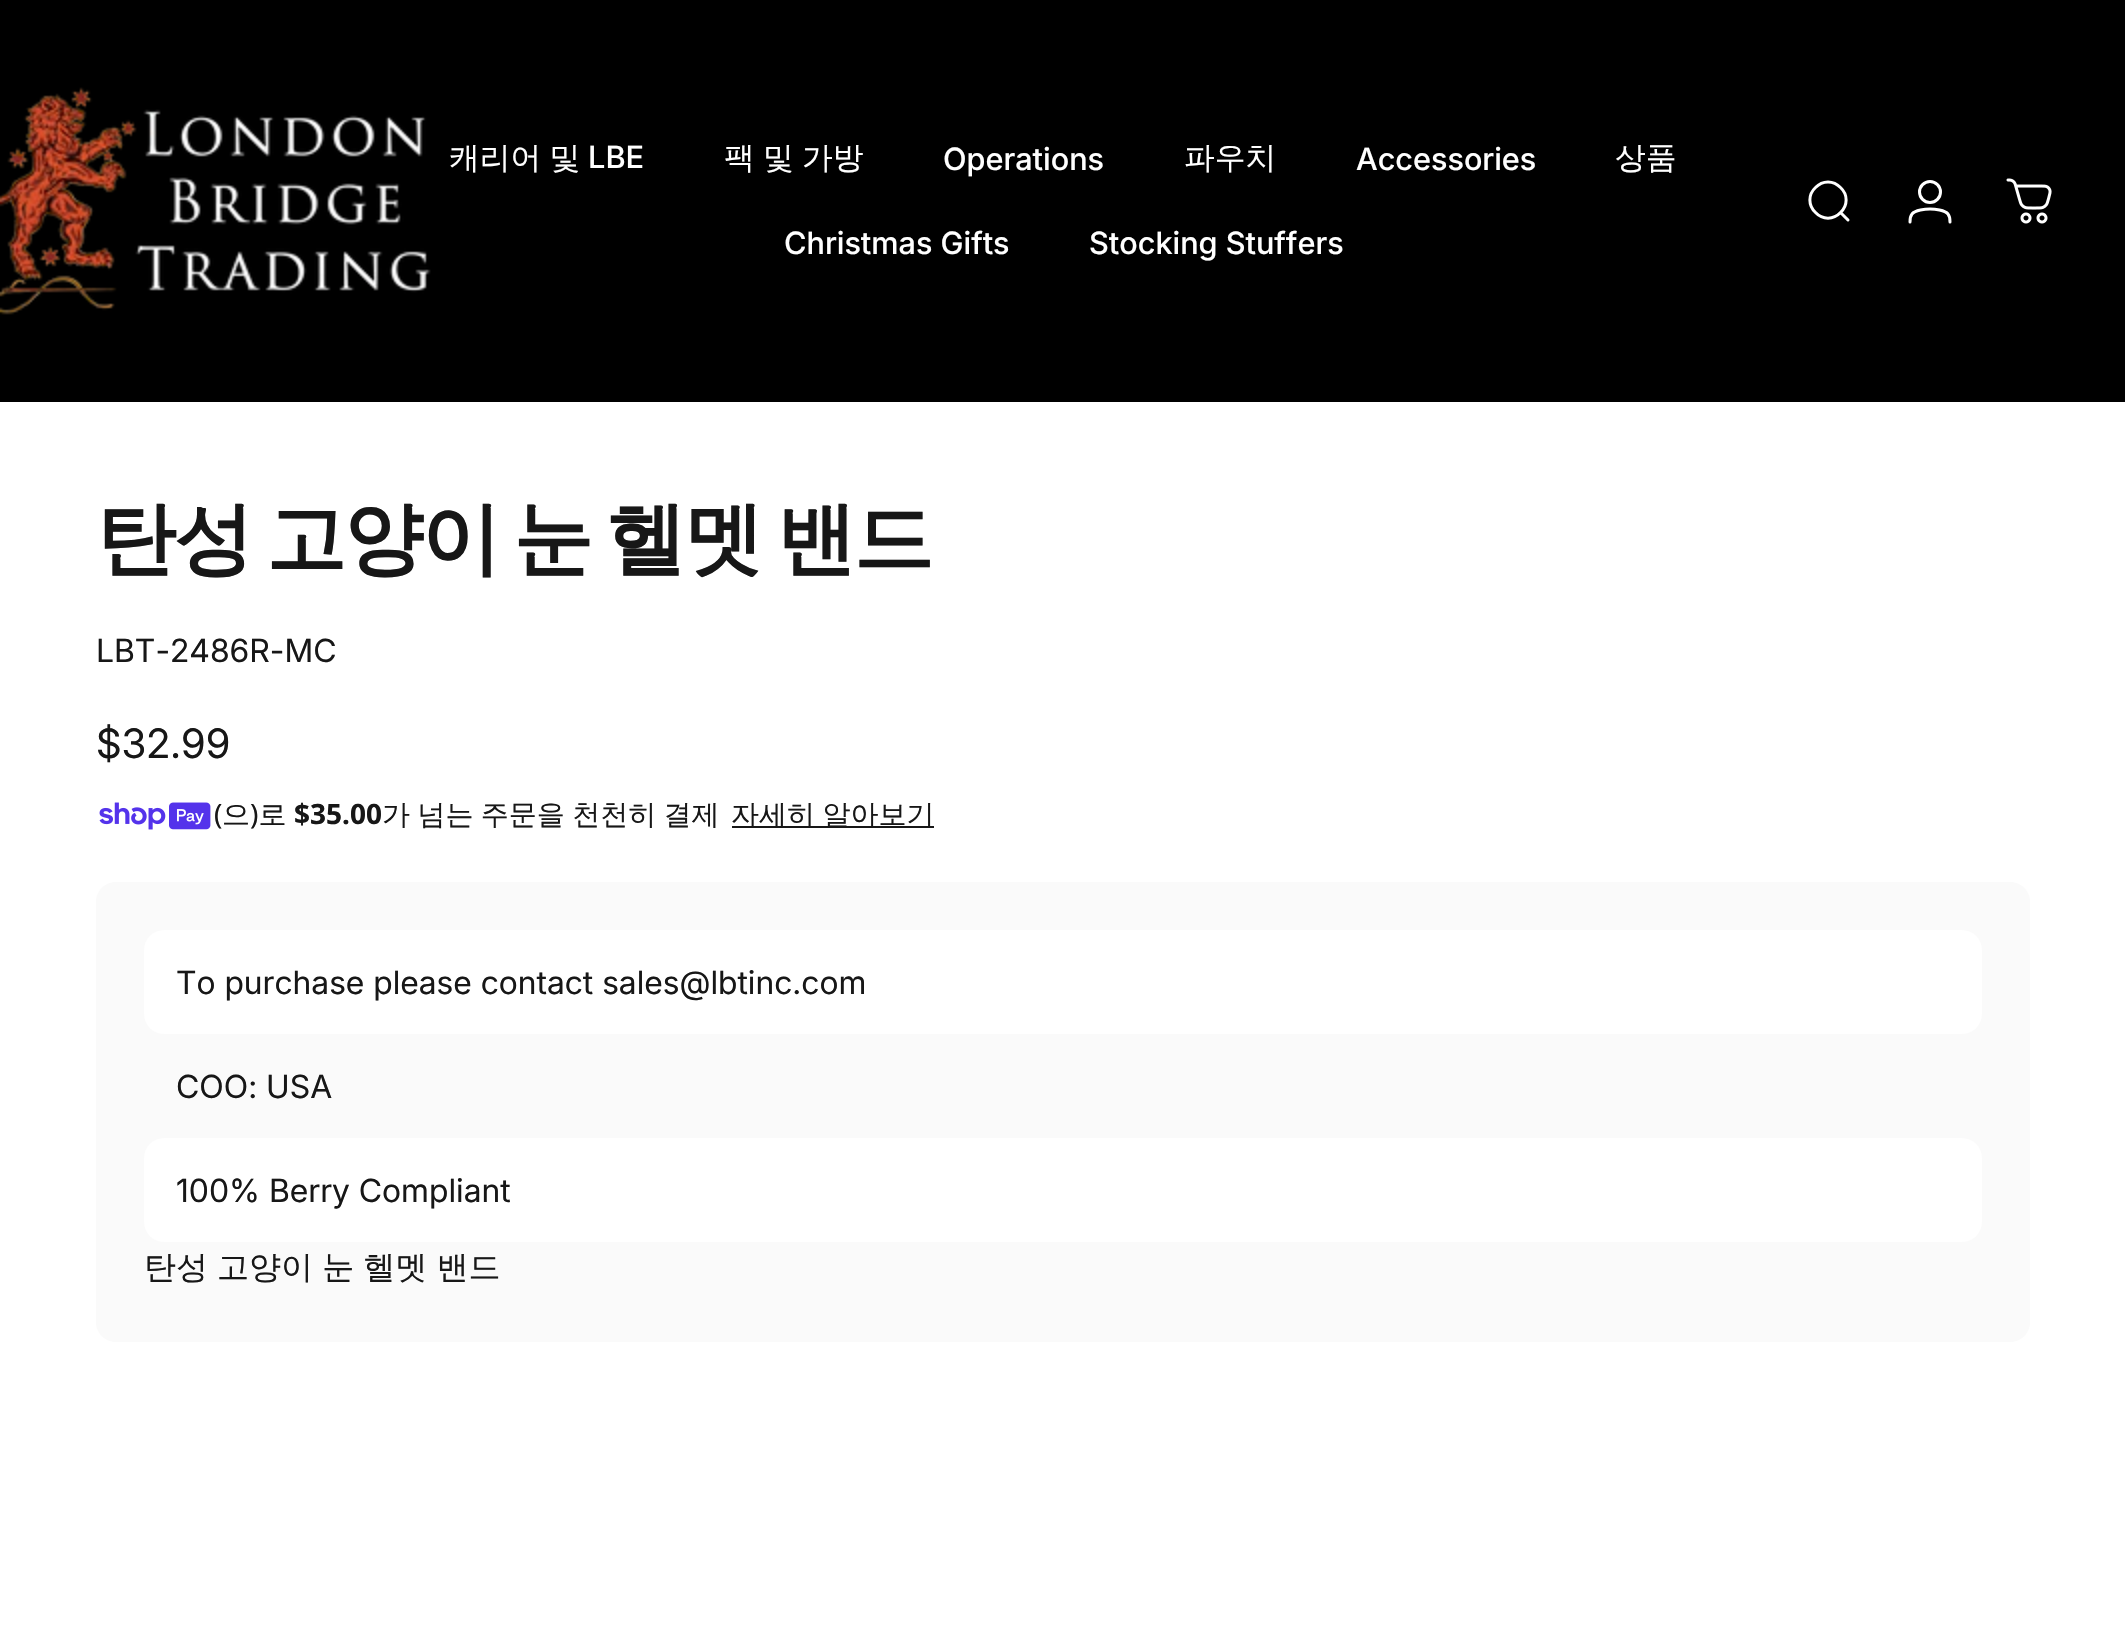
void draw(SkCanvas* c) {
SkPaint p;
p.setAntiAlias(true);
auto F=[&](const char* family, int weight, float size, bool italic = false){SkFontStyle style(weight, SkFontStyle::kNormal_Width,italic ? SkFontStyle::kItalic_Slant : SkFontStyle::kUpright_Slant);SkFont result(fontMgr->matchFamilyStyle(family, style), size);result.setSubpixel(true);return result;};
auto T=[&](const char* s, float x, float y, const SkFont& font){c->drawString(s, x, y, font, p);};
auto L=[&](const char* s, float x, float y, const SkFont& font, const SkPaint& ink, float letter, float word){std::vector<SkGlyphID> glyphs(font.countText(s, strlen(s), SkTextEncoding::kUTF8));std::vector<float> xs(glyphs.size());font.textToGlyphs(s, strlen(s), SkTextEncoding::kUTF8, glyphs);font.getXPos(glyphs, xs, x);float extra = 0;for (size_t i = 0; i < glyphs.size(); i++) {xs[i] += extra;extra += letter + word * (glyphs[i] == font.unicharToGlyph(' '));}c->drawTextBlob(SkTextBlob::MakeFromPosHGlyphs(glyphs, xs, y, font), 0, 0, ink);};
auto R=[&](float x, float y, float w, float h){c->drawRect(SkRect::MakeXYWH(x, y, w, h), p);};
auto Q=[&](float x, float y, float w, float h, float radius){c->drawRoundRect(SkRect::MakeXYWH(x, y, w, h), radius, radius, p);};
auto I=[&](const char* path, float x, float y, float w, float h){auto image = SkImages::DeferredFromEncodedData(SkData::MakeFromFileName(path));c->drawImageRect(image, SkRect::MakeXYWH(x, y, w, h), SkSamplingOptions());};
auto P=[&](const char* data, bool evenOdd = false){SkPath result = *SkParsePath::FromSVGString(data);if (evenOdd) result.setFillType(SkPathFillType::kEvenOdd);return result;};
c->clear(0xffffffff);
p.setColor(0xff000000);
R(0,0,2125,402);
I("1.png",0,87,431,228);
auto f1 = F("WenQuanYi Zen Hei",500,30.75);
p.setColor(0xffffffff);
L("캐리어 및",449,168,f1,p,0,-1);
auto f2 = F("Inter",500,30.75);
T("LBE",588,168,f2);
L("팩 및 가방",724,168,f1,p,0,-1);
auto f3 = F("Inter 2",500,30.75);
T("Operations",943,170,f3);
T("파우치",1184,168,f1);
T("Accessories",1356,170,f3);
T("상품",1615,168,f1);
T("Christmas Gifts",784,254,f3);
T("Stocking Stuffers",1089,254,f3);
p.setStroke(true);
p.setStrokeWidth(3);
p.setStrokeCap(SkPaint::kRound_Cap);
c->drawPath(P("M1848 220l-7.5-7.5m0 0c7.5-7 7.5-18 0-25c-7-7.5-18-7.5-25 0c-7.5 7-7.5 18 0 25c7 7.5 18 7.5 25 0z"),p);
p.setStrokeCap(SkPaint::kButt_Cap);
c->drawCircle(1930,192,10.5,p);
p.setStrokeCap(SkPaint::kRound_Cap);
c->drawPath(P("M1930 209c4.5 0 15 1 18 5c2 2.5 2 5 2 8m-20-13c-4.5 0-15 1-18 5c-2 2.5-2 5-2 8"),p);
I("2.png",2006,178,46,46);
auto f4 = F("WenQuanYi Zen Hei",700,80);
p.setStroke(false);
p.setColor(0xff171717);
L("탄성",96,566,f4,p,-2.5,0);
L("고양이",266,566,f4,p,-2.5,0);
L("눈",513,566,f4,p,-2.5,0);
L("헬멧",606,566,f4,p,-2.5,0);
L("밴드",776,566,f4,p,-2.5,0);
auto f5 = F("Inter",400,32);
T("LBT-2486R-MC",96,662,f5);
auto f6 = F("Inter 2",400,40.5);
T("$32.99",96,758,f6);
I("3.png",99,802,112,28);
auto f7 = F("Noto Sans",400,28);
T("(",214,824,f7);
auto f8 = F("WenQuanYi Zen Hei",500,28);
T("으 로",222,824,f8);
T(")",250,824,f7);
auto f9 = F("Noto Sans",700,28);
T("$35.00",294,824,f9);
L("가 넘는 주문을 천천히 결제",382,824,f8,p,0,-1);
R(732,826,202,2);
L("자세히 알아보기",731,824,f8,p,0,-1);
p.setColor(0xfffafafa);
c->drawPath(P("M116 882h1894c11 0 20 9 20 20v132h-1934v-132c0-11 9-20 20-20z"),p);
p.setColor(0xffffffff);
Q(144,930,1838,104,20);
p.setColor(0xff171717);
T("To purchase please contact sales@lbtinc.com",176,994,f5);
p.setColor(0xfffafafa);
R(96,1034,1934,208);
p.setColor(0xff171717);
T("COO: USA",176,1098,f5);
p.setColor(0xffffffff);
Q(144,1138,1838,104,20);
p.setColor(0xff171717);
T("100% Berry Compliant",176,1202,f5);
p.setColor(0xfffafafa);
c->drawPath(P("M96 1242h1934v80c0 11-9 20-20 20h-1894c-11 0-20-9-20-20z"),p);
auto f10 = F("WenQuanYi Zen Hei",500,32);
p.setColor(0xff171717);
L("탄성 고양이 눈 헬멧 밴드",144,1278,f10,p,0,-.5);
}
